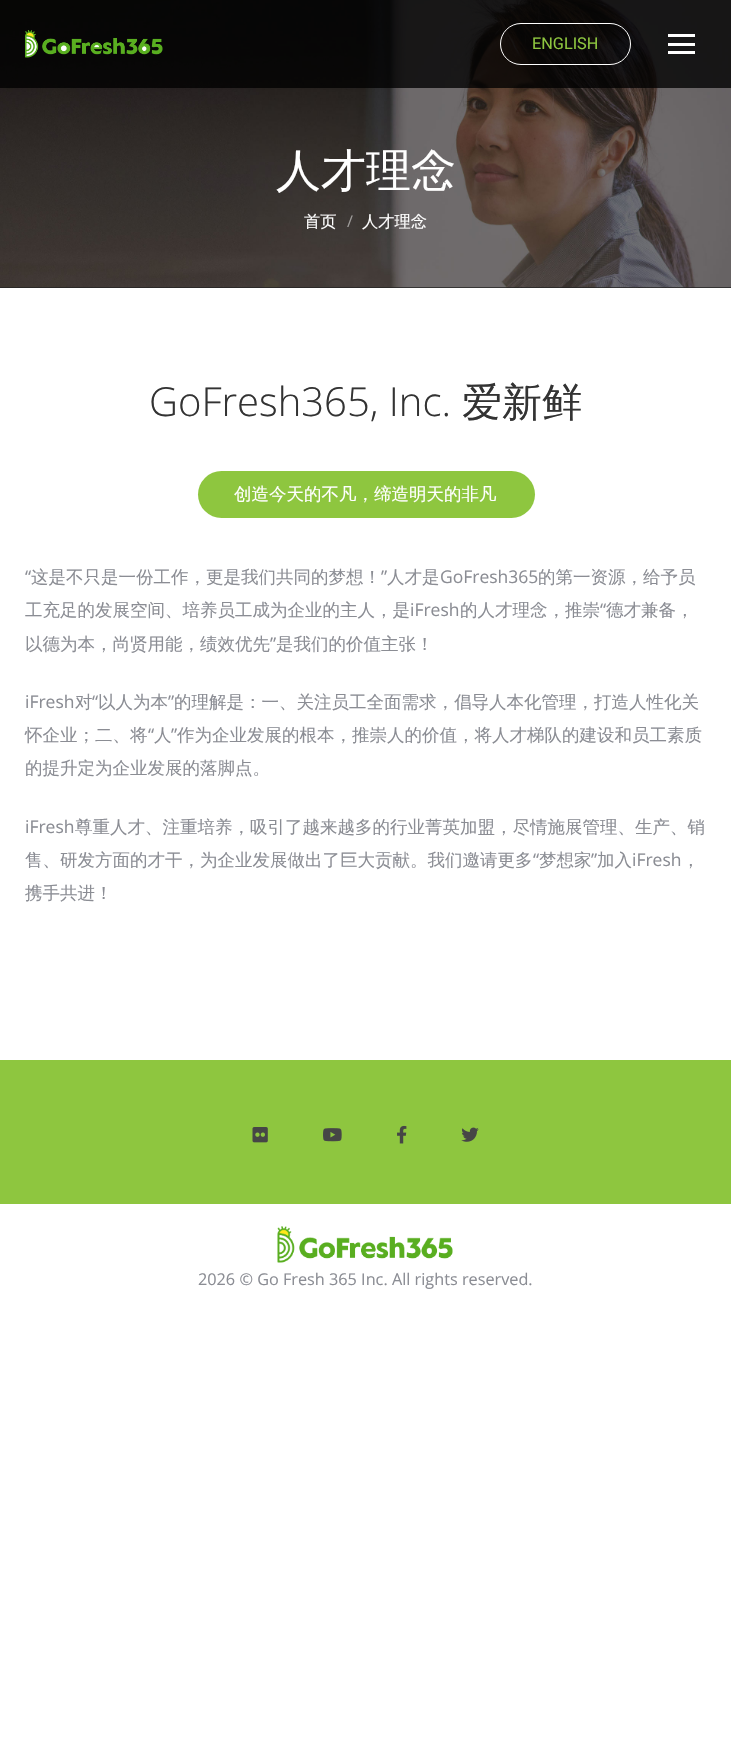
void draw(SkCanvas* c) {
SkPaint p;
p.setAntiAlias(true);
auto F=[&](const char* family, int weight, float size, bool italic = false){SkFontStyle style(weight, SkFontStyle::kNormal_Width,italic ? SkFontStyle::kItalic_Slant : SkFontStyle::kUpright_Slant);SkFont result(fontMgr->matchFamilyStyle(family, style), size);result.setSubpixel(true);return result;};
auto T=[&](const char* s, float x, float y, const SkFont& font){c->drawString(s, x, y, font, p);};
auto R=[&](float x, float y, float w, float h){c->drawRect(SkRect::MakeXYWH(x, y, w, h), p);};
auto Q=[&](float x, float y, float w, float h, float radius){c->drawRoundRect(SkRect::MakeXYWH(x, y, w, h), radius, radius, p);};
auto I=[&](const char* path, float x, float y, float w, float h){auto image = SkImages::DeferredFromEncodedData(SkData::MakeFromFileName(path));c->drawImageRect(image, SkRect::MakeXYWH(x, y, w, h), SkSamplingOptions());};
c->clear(0xffffffff);
p.setColor(0xff222222);
R(0,287,731,1);
I("2.png",0,0,731,288);
p.setColor(0xc7000000);
R(0,0,731,88);
I("1.png",25,30,138,28);
p.setStroke(true);
p.setStrokeWidth(1);
p.setColor(0xffffffff);
c->drawRoundRect(SkRect::MakeXYWH(500.5,23.5,130,41),20.5,20.5,p);
auto f1 = F("Roboto",400,16.25);
p.setStroke(false);
p.setColor(0xff8ec63f);
T("ENGLISH",532,49,f1);
p.setColor(0xffffffff);
R(668,34,27,3);
R(668,43,27,3);
R(668,51,27,3);
auto f2 = F("WenQuanYi Zen Hei",500,45);
T("人才理念",276,186,f2);
auto f3 = F("WenQuanYi Zen Hei",500,16.25);
T("首页",304,227,f3);
auto f4 = F("Open Sans",400,16.25);
p.setColor(0xff9e9c9a);
T("/",347,227,f4);
p.setColor(0xffffffff);
T("人才理念",362,227,f3);
auto f5 = F("Open Sans",300,40);
p.setColor(0xff333333);
T("GoFresh365, Inc.",149,416,f5);
auto f6 = F("WenQuanYi Zen Hei",500,40);
T("爱新鲜",462,416,f6);
p.setColor(0xff8ec63f);
Q(198,471,337,47,23.5);
auto f7 = F("WenQuanYi Zen Hei",500,17.5);
p.setColor(0xffffffff);
T("创造今天的不凡，缔造明天的非凡",234,500,f7);
auto f8 = F("Open Sans",400,17.5);
p.setColor(0xff8b8d94);
T("“",25,583,f8);
T("这是不只是一份工作，更是我们共同的梦想！",31,583,f7);
T("”",381,583,f8);
T("人才是",387,583,f7);
T("GoFresh365",440,583,f8);
T("的第一资源，给予员",538,583,f7);
T("工充足的发展空间、培养员工成为企业的主人，是",25,616,f7);
T("iFresh",410,616,f8);
T("的人才理念，推崇",460,616,f7);
T("“",600,616,f8);
T("德才兼备，",606,616,f7);
T("以德为本，尚贤用能，绩效优先",25,650,f7);
T("”",270,650,f8);
T("是我们的价值主张！",276,650,f7);
T("iFresh",25,708,f8);
T("对",75,708,f7);
T("“",92,708,f8);
T("以人为本",98,708,f7);
T("”",168,708,f8);
T("的理解是：一、关注员工全面需求，倡导人本化管理，打造人性化关",174,708,f7);
T("怀企业；二、将",25,741,f7);
T("“",148,741,f8);
T("人",154,741,f7);
T("”",171,741,f8);
T("作为企业发展的根本，推崇人的价值，将人才梯队的建设和员工素质",177,741,f7);
T("的提升定为企业发展的落脚点。",25,774,f7);
T("iFresh",25,833,f8);
T("尊重人才、注重培养，吸引了越来越多的行业菁英加盟，尽情施展管理、生产、销",75,833,f7);
T("售、研发方面的才干，为企业发展做出了巨大贡献。我们邀请更多",25,866,f7);
T("“",533,866,f8);
T("梦想家",539,866,f7);
T("”",591,866,f8);
T("加入",597,866,f7);
T("iFresh",632,866,f8);
T("，",682,866,f7);
T("携手共进！",25,899,f7);
p.setColor(0xff8ec63f);
R(0,1060,731,144);
I("3.png",252,1127,16,16);
I("4.png",323,1128,19,14);
I("5.png",397,1125,10,19);
I("6.png",461,1127,18,15);
I("7.png",277,1226,176,37);
p.setColor(0xff8b8d94);
T("2026 © Go Fresh 365 Inc. All rights reserved.",198,1285,f4);
}
